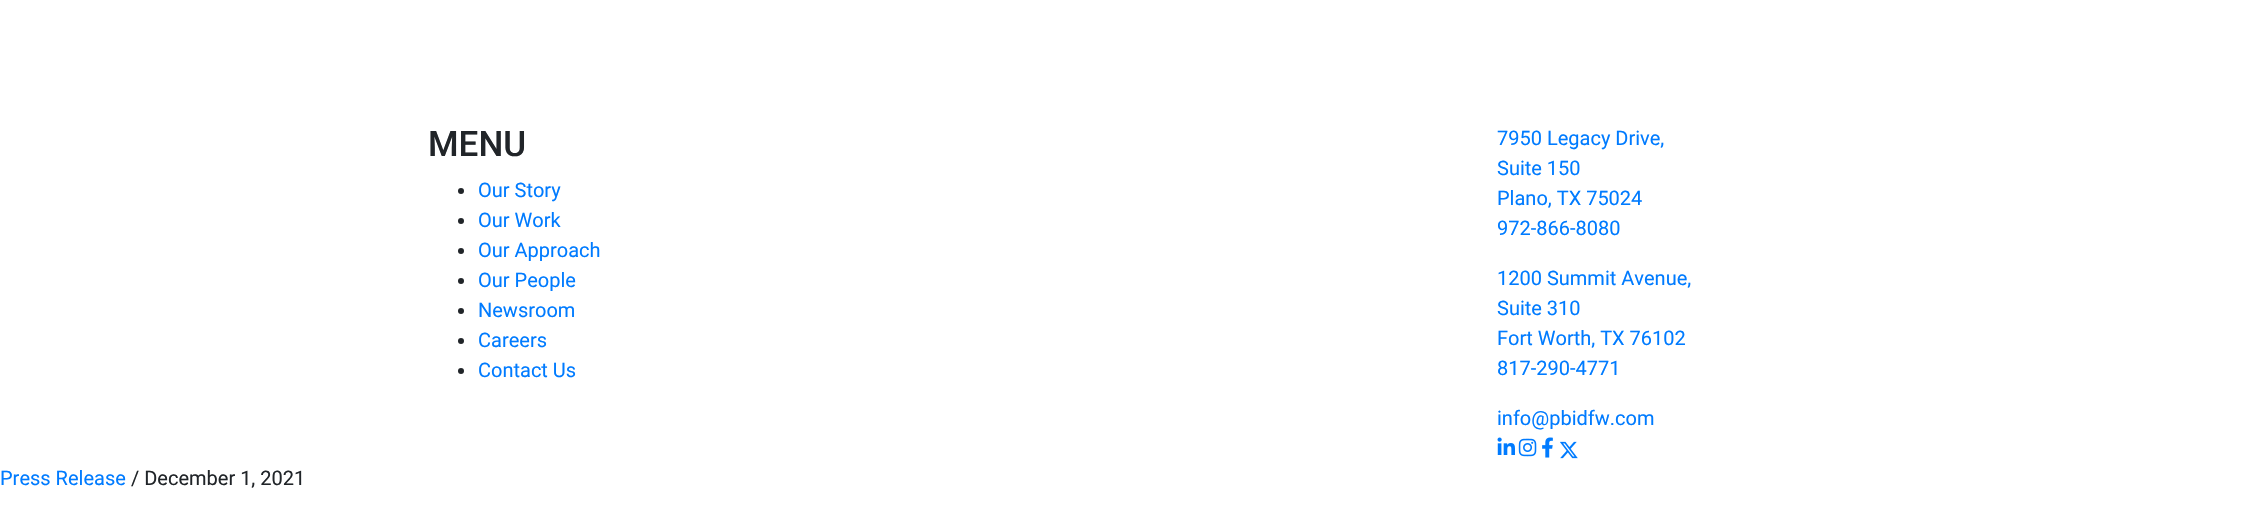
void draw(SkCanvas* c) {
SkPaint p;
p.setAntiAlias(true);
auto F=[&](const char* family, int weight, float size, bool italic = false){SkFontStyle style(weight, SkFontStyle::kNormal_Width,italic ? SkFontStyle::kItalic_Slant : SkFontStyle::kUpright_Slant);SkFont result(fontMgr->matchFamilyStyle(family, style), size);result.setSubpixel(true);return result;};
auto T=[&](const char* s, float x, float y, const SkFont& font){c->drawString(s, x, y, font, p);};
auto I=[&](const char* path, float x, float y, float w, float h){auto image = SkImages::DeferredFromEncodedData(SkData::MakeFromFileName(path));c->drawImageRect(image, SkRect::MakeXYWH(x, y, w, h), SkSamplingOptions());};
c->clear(0xffffffff);
auto f1 = F("Roboto",500,35);
p.setColor(0xff212529);
T("MENU",428,156,f1);
c->drawCircle(461,191,3,p);
auto f2 = F("Roboto",400,20);
p.setColor(0xff007bff);
T("Our Story",478,197,f2);
p.setColor(0xff212529);
c->drawCircle(461,221,3,p);
p.setColor(0xff007bff);
T("Our Work",478,227,f2);
p.setColor(0xff212529);
c->drawCircle(461,251,3,p);
p.setColor(0xff007bff);
T("Our Approach",478,257,f2);
p.setColor(0xff212529);
c->drawCircle(461,281,3,p);
p.setColor(0xff007bff);
T("Our People",478,287,f2);
p.setColor(0xff212529);
c->drawCircle(461,311,3,p);
p.setColor(0xff007bff);
T("Newsroom",478,317,f2);
p.setColor(0xff212529);
c->drawCircle(461,341,3,p);
p.setColor(0xff007bff);
T("Careers",478,347,f2);
p.setColor(0xff212529);
c->drawCircle(461,371,3,p);
p.setColor(0xff007bff);
T("Contact Us",478,377,f2);
T("7950 Legacy Drive,",1497,145,f2);
T("Suite 150",1497,175,f2);
T("Plano, TX 75024",1497,205,f2);
T("972-866-8080",1497,235,f2);
T("1200 Summit Avenue,",1497,285,f2);
T("Suite 310",1497,315,f2);
T("Fort Worth, TX 76102",1497,345,f2);
T("817-290-4771",1497,375,f2);
T("info@pbidfw.com",1497,425,f2);
I("1.png",1497,437,18,18);
I("2.png",1518,438,19,19);
I("3.png",1542,437,11,21);
I("4.png",1560,441,18,18);
T("Press Release",0,485,f2);
p.setColor(0xff212529);
T("/ December 1, 2021",131,485,f2);
}
